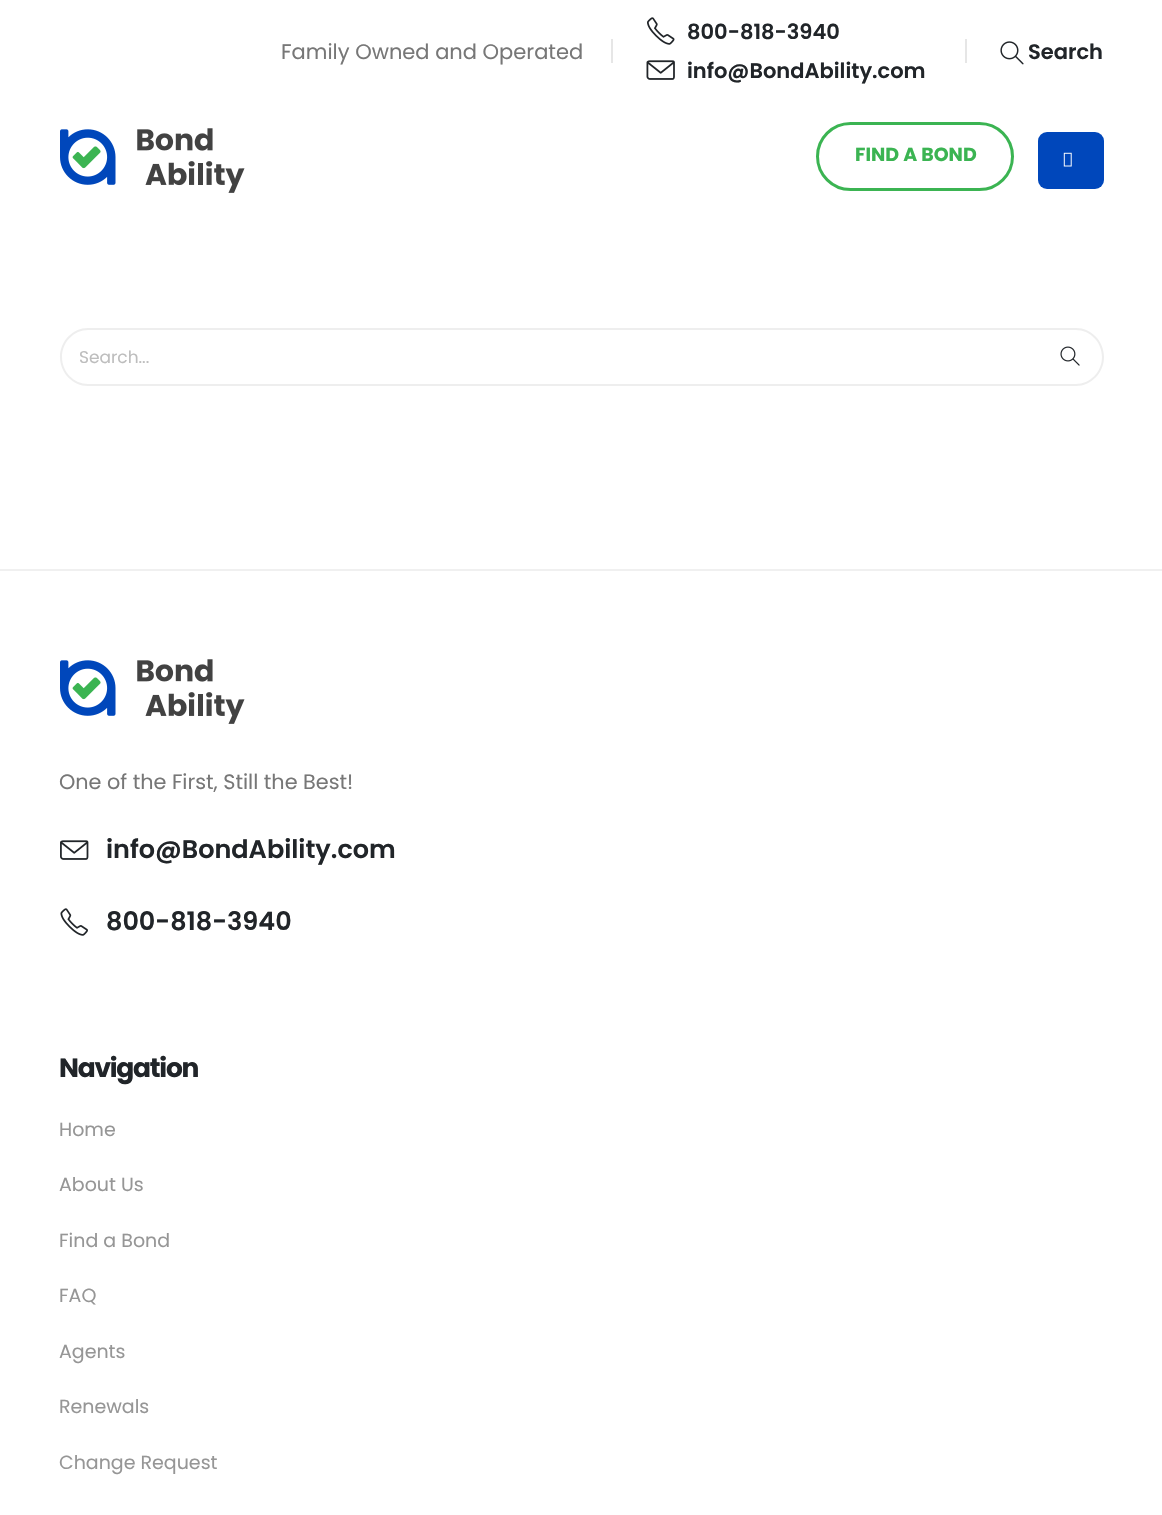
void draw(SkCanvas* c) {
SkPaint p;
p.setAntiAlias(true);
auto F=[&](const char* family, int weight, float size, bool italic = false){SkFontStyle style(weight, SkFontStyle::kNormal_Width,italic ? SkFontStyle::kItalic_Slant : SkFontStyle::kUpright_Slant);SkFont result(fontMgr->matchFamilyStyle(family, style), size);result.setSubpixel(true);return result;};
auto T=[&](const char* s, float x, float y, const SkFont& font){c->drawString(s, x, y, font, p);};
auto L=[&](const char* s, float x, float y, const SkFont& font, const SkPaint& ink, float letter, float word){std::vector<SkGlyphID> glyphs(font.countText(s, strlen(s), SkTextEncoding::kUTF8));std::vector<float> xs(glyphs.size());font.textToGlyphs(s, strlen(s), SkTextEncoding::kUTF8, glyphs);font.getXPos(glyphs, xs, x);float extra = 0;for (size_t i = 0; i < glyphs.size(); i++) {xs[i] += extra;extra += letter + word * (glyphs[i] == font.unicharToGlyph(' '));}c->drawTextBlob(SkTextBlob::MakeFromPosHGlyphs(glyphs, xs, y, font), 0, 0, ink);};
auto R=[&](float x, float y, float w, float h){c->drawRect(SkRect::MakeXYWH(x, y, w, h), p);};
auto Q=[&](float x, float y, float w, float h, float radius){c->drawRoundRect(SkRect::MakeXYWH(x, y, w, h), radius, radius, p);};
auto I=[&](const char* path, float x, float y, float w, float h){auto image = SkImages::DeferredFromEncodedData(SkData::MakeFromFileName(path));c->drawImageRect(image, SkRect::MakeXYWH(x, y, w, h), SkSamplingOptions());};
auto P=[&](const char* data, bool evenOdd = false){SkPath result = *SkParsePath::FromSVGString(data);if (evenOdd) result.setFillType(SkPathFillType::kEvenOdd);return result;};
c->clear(0xffffffff);
auto f1 = F("Poppins",400,21);
p.setColor(0xff777777);
T("Family Owned and Operated",281,59,f1);
I("1.png",647,17,28,28);
auto f2 = F("Poppins",600,21);
p.setColor(0xff212529);
T("800-818-3940",687,39,f2);
p.setColor(0xffe6e6e6);
R(611,39,2,24);
I("2.png",646,60,29,20);
p.setColor(0xff212529);
T("info@BondAbility.com",687,78,f2);
p.setColor(0xffe6e6e6);
R(965,39,2,24);
I("3.png",1000,41,24,24);
p.setColor(0xff212529);
T("Search",1028,59,f2);
I("4.png",60,128,185,65);
p.setStroke(true);
p.setStrokeWidth(3);
p.setColor(0xff3bb452);
c->drawRoundRect(SkRect::MakeXYWH(817.5,123.5,195,66),33,33,p);
auto f3 = F("Poppins",700,19);
p.setStroke(false);
T("FIND A BOND",855,161,f3);
p.setColor(0xff0047bb);
Q(1038,132,66,57,9);
I("5.png",1063,152,9,15);
p.setColor(0xffeeeeee);
c->drawPath(P("M88 328h952v58h-952c-15 0-28-13-28-29c0-16 13-29 28-29zm0 2h952v54h-952c-14 0-26-12-26-27c0-15 12-27 26-27z",true),p);
c->save();
c->clipRect(SkRect::MakeXYWH(80,345,939,26));
auto f4 = F("Poppins",400,17);
p.setColor(0xffbdbdbd);
T("Search...",79,363,f4);
c->restore();
p.setColor(0xffeeeeee);
c->drawPath(P("M1038 328h38c15 0 28 13 28 29c0 16-13 29-28 29h-38zm0 2h38c14 0 26 12 26 27c0 15-12 27-26 27h-38z",true),p);
I("6.png",1060,346,20,20);
p.setColor(0xfff0f0f0);
R(0,569,1162,2);
I("4.png",60,659,185,65);
auto f5 = F("Poppins",400,20.75);
p.setColor(0xff777777);
T("One of the First, Still the Best!",59,789,f5);
I("7.png",60,840,29,20);
auto f6 = F("Poppins",600,25.5);
p.setColor(0xff212529);
T("info@BondAbility.com",106,858,f6);
I("8.png",60,908,28,28);
T("800-818-3940",106,930,f6);
auto f7 = F("Poppins",700,26.5);
L("Navigation",59,1077,f7,p,-1.25,0);
auto f8 = F("Poppins",400,19);
p.setColor(0xff969696);
T("Home",59,1136,f8);
T("About Us",59,1191,f8);
T("Find a Bond",59,1247,f8);
T("FAQ",59,1302,f8);
T("Agents",59,1358,f8);
T("Renewals",59,1413,f8);
T("Change Request",59,1469,f8);
}
